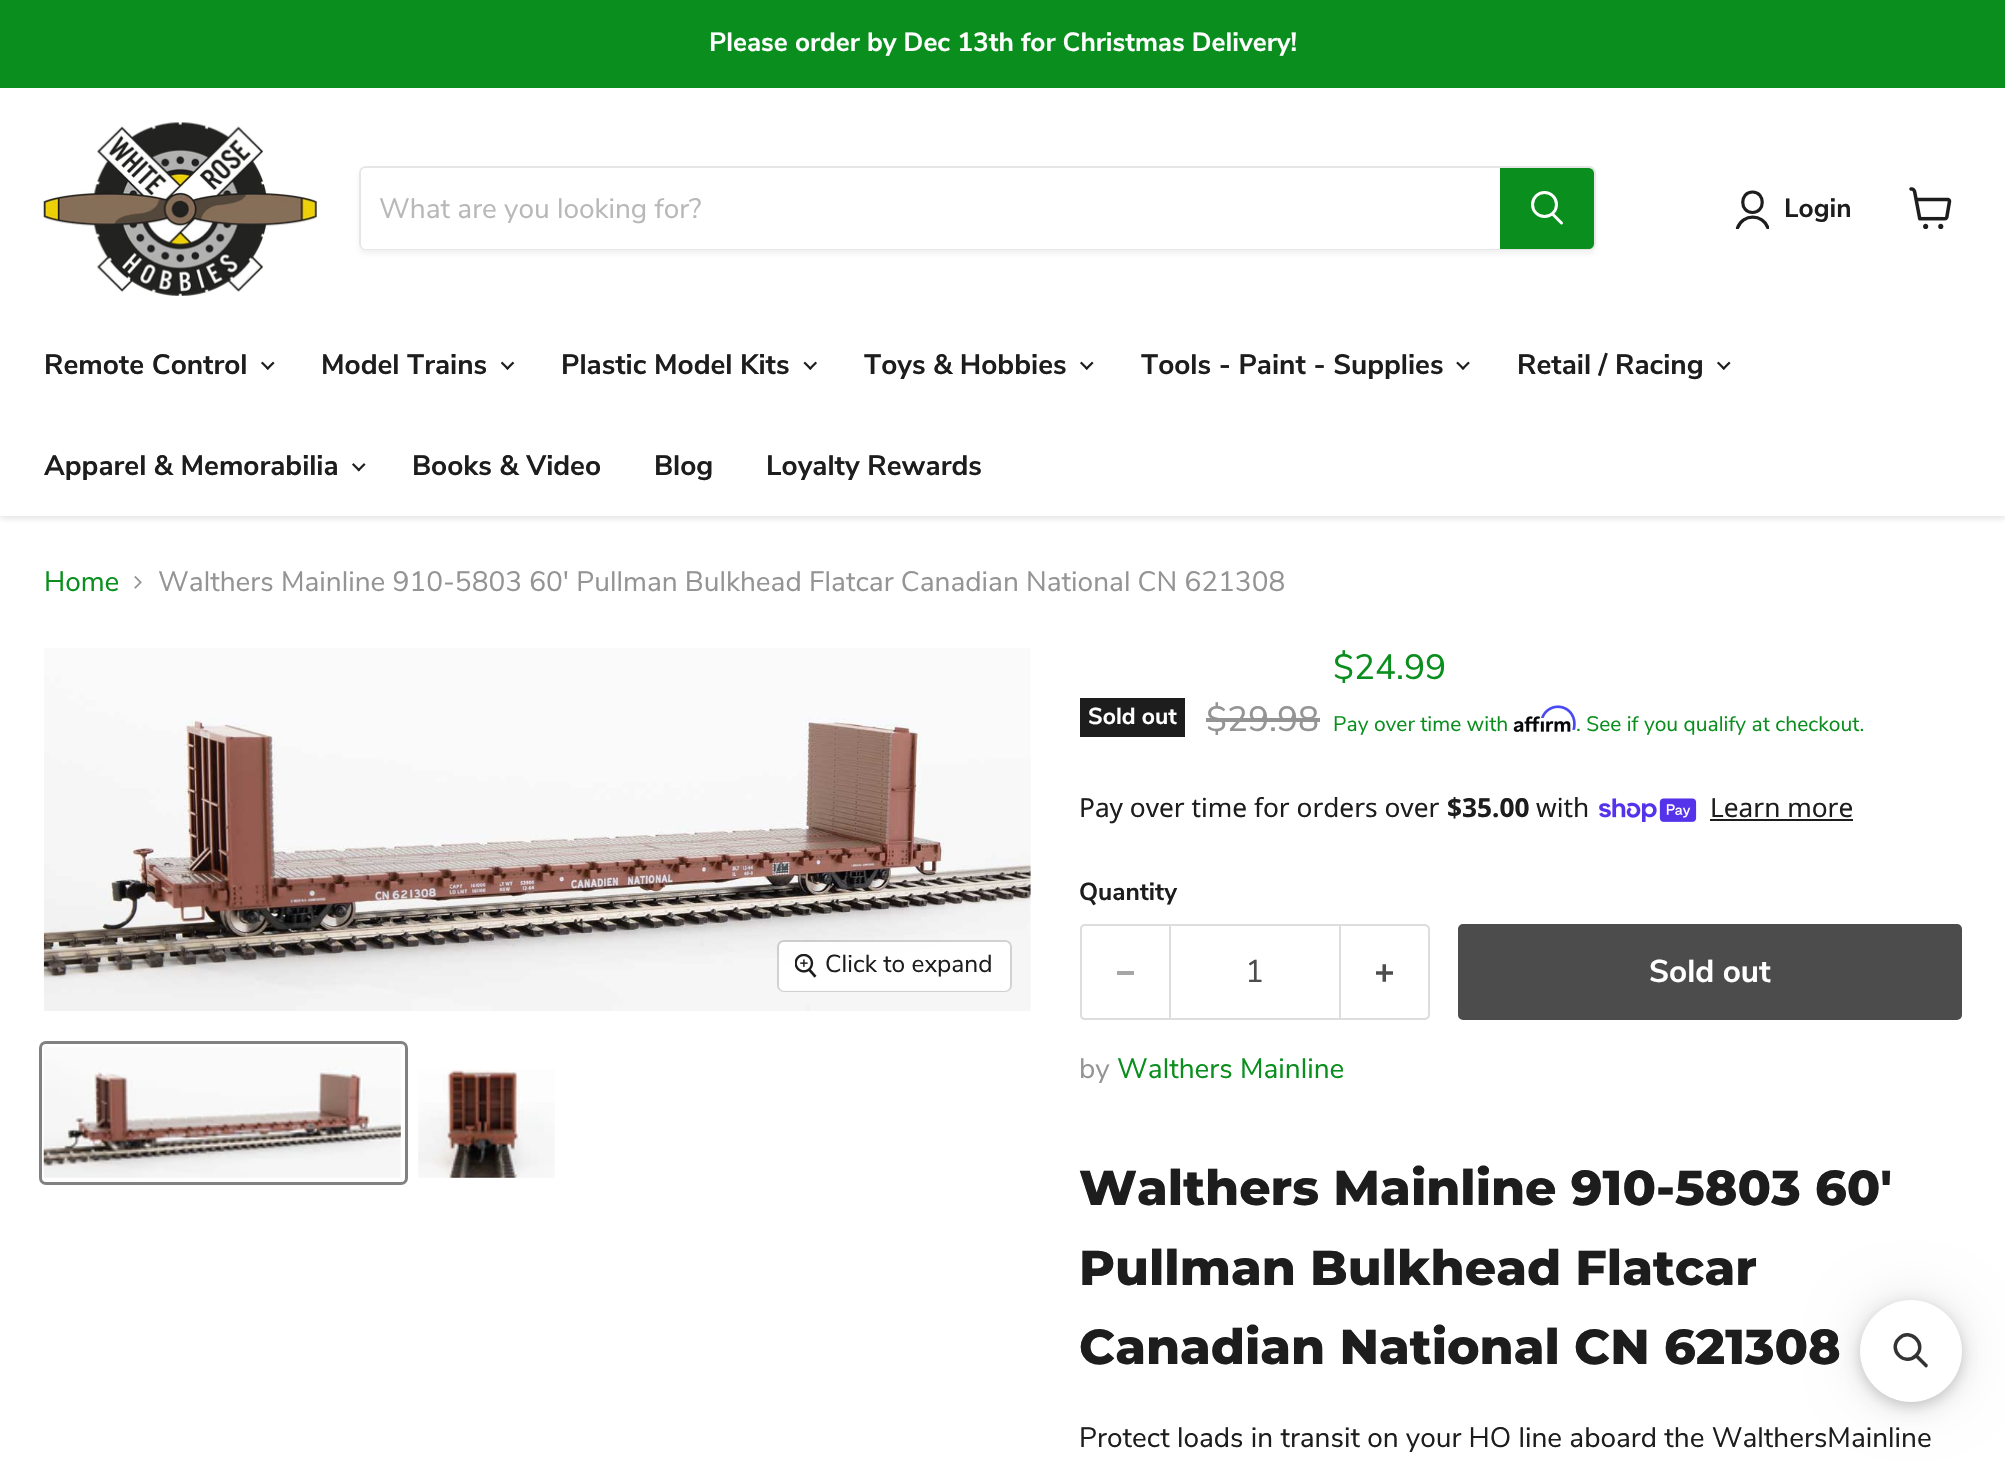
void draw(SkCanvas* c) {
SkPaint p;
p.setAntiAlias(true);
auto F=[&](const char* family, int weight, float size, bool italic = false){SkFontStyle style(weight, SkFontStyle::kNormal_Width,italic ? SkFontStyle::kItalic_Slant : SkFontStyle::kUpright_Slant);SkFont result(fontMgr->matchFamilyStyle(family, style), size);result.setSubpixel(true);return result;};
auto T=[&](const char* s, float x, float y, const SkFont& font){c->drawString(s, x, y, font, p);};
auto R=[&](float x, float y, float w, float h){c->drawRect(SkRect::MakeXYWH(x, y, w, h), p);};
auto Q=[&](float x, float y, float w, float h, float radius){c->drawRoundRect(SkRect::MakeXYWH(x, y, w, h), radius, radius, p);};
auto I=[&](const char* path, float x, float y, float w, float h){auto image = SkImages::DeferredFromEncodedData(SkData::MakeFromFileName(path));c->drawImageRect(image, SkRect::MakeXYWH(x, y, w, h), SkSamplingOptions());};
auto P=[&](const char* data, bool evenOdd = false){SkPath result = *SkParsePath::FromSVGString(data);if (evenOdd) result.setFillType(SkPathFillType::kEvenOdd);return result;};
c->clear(0xffffffff);
c->save();
c->clipRect(SkRect::MakeXYWH(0,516,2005,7));
p.setColor(0x40808080);
p.setMaskFilter(SkMaskFilter::MakeBlur(kNormal_SkBlurStyle, 3.5));
c->drawRect(SkRect::MakeXYWH(0,89,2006,429),p);
p.setMaskFilter(nullptr);
c->restore();
p.setColor(0xff0a8e1d);
R(0,0,2005,88);
auto f1 = F("Nunito Sans",700,26.25);
p.setColor(0xffffffff);
T("Please order by Dec 13th for Christmas Delivery!",709,51,f1);
I("1.png",43,122,274,174);
c->save();
c->clipPath(P("M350 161h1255v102h-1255zm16 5h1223c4 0 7 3 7 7v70c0 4-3 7-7 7h-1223c-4 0-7-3-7-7v-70c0-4 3-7 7-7z",true),true);
p.setColor(0x1c808080);
p.setMaskFilter(SkMaskFilter::MakeBlur(kNormal_SkBlurStyle, 2.5));
c->drawRoundRect(SkRect::MakeXYWH(359,170,1237,84),7,7,p);
p.setMaskFilter(nullptr);
c->restore();
p.setStroke(true);
p.setStrokeWidth(2);
p.setColor(0x33808080);
c->drawRoundRect(SkRect::MakeXYWH(360,167,1235,82),6,6,p);
p.setStroke(false);
p.setColor(0xffffffff);
c->drawPath(P("M366 168h1134v81h-1134c-3 0-5-2-5-5v-71c0-3 2-5 5-5z"),p);
auto f2 = F("Nunito Sans",400,28);
p.setColor(0xffb8b8b8);
T("What are you looking for?",379,218,f2);
p.setColor(0xff0a8e1d);
c->drawPath(P("M1501 169h88c2 0 4 2 4 4v71c0 2-2 4-4 4h-88z"),p);
p.setStroke(true);
c->drawPath(P("M1501 169h88c2 0 4 2 4 4v71c0 2-2 4-4 4h-88z"),p);
p.setStrokeWidth(3);
p.setStrokeCap(SkPaint::kRound_Cap);
p.setColor(0xffffffff);
c->drawPath(P("M1561.5 223l-8.5-8.5"),p);
p.setStrokeCap(SkPaint::kButt_Cap);
c->drawCircle(1544.5,204.5,12,p);
p.setStrokeWidth(3.2);
p.setStrokeCap(SkPaint::kRound_Cap);
p.setStrokeJoin(SkPaint::kRound_Join);
p.setColor(0xff1d1d1d);
c->drawPath(P("M1752.5 212.5c13 0 13-20.5 0-20.5c-13 0-13 20.5 0 20.5z"),p);
c->save();
c->clipRect(SkRect::MakeXYWH(1734,189,35,40));
c->drawPath(P("M1768 228c-5-14.5-25.5-14.5-30.5 0"),p);
c->restore();
p.setStroke(false);
T("Login",1784,217,f1);
I("2.png",1909,187,43,42);
auto f3 = F("Nunito Sans",700,28);
T("Remote Control",44,374,f3);
I("3.png",261,361,14,9);
T("Model Trains",321,374,f3);
I("4.png",501,361,14,9);
T("Plastic Model Kits",561,374,f3);
I("5.png",803,361,14,9);
T("Toys & Hobbies",864,374,f3);
I("3.png",1080,361,14,9);
T("Tools - Paint - Supplies",1141,374,f3);
I("6.png",1456,361,14,9);
T("Retail / Racing",1517,374,f3);
I("3.png",1717,361,14,9);
T("Apparel & Memorabilia",44,475,f3);
I("7.png",352,463,14,9);
T("Books & Video",412,475,f3);
T("Blog",654,475,f3);
T("Loyalty Rewards",766,475,f3);
p.setColor(0xff0a8e1d);
T("Home",44,591,f2);
I("8.png",134,576,8,13);
p.setColor(0xff949494);
T("Walthers Mainline 910-5803 60' Pullman Bulkhead Flatcar Canadian National CN 621308",158,591,f2);
I("9.png",43,648,988,363);
p.setStroke(true);
p.setStrokeWidth(2);
p.setStrokeCap(SkPaint::kButt_Cap);
p.setStrokeJoin(SkPaint::kMiter_Join);
p.setColor(0x26000000);
c->drawRoundRect(SkRect::MakeXYWH(778,941,233,50),6,6,p);
p.setStroke(false);
p.setColor(0xe6ffffff);
Q(779,942,231,49,5);
I("10.png",795,954,22,24);
auto f4 = F("Nunito Sans",400,24.5);
p.setColor(0xff1d1d1d);
T("Click to expand",825,972,f4);
p.setStroke(true);
p.setStrokeWidth(3);
p.setColor(0xff818181);
c->drawRoundRect(SkRect::MakeXYWH(40.5,1042.5,366,141),5.5,5.5,p);
I("11.png",43,1047,358,131);
I("12.png",418,1069,137,109);
p.setStroke(false);
p.setColor(0xff1d1d1d);
R(1080,698,105,39);
auto f5 = F("Nunito Sans",700,23);
p.setColor(0xffffffff);
T("Sold out",1088,724,f5);
auto f6 = F("Nunito Sans",400,35);
p.setColor(0xff949494);
T("$29.98",1206,731,f6);
R(1206,718,114,4);
p.setColor(0xff0a8e1d);
T("$24.99",1333,679,f6);
auto f7 = F("Nunito Sans",400,21);
T("Pay over time with",1333,731,f7);
I("14.png",1513,716,58,16);
I("13.png",1541,705,35,25);
T(". See if you qualify at checkout.",1576,731,f7);
auto f8 = F("Noto Sans",400,26.25);
p.setColor(0xff1d1d1d);
T("Pay over time for orders over",1079,817,f8);
auto f9 = F("Noto Sans",700,26.25);
T("$35.00",1447,817,f9);
T("with",1536,817,f8);
I("15.png",1599,798,98,24);
T("Learn more",1710,817,f8);
R(1710,819,143,2);
auto f10 = F("Nunito Sans",700,24.5);
T("Quantity",1079,900,f10);
p.setColor(0xffdddddd);
c->drawPath(P("M1085 924h84v96h-84c-3 0-5-2-5-5v-86c0-3 2-5 5-5zm0 2h84v92h-84c-2 0-3-1-3-3v-86c0-2 1-3 3-3z",true),p);
p.setColor(0xffa6a6a6);
R(1117,971,17,4);
p.setStroke(true);
p.setStrokeWidth(2);
p.setColor(0xffdddddd);
c->drawRect(SkRect::MakeXYWH(1170,925,170,94),p);
auto f11 = F("Nunito Sans",400,31.5);
p.setStroke(false);
p.setColor(0xff4d4d4d);
T("1",1245,982,f11);
p.setColor(0xffdddddd);
c->drawPath(P("M1340 924h84c3 0 6 2 6 5v86c0 3-3 5-6 5h-84zm0 2h84c2 0 4 1 4 3v86c0 2-2 3-4 3h-84z",true),p);
I("16.png",1376,964,17,18);
p.setColor(0xff4c4c4c);
c->drawRoundRect(SkRect::MakeXYWH(1459,925,502,94),4,4,p);
p.setStroke(true);
c->drawRoundRect(SkRect::MakeXYWH(1459,925,502,94),4,4,p);
auto f12 = F("Nunito Sans",700,31.5);
p.setStroke(false);
p.setColor(0xffffffff);
T("Sold out",1649,982,f12);
p.setColor(0xff949494);
T("by",1079,1078,f2);
p.setColor(0xff0a8e1d);
T("Walthers Mainline",1117,1078,f2);
auto f13 = F("Montserrat",800,49);
p.setColor(0xff1d1d1d);
T("Walthers Mainline 910-5803 60'",1079,1205,f13);
T("Pullman Bulkhead Flatcar",1079,1285,f13);
T("Canadian National CN 621308",1079,1364,f13);
T("Protect loads in transit on your HO line aboard the WalthersMainline",1079,1447,f2);
p.setColor(0x0d000000);
p.setMaskFilter(SkMaskFilter::MakeBlur(kNormal_SkBlurStyle, 7));
c->drawRoundRect(SkRect::MakeXYWH(1860,1307,102,102),51,51,p);
p.setMaskFilter(nullptr);
p.setColor(0x26000000);
p.setMaskFilter(SkMaskFilter::MakeBlur(kNormal_SkBlurStyle, 7));
c->drawRoundRect(SkRect::MakeXYWH(1860,1304,102,101),50.5,50.5,p);
p.setMaskFilter(nullptr);
p.setColor(0x1a000000);
p.setMaskFilter(SkMaskFilter::MakeBlur(kNormal_SkBlurStyle, 26));
c->drawRoundRect(SkRect::MakeXYWH(1860,1300,102,102),51,51,p);
p.setMaskFilter(nullptr);
p.setColor(0xffffffff);
c->drawCircle(1911,1351,51,p);
p.setStroke(true);
p.setStrokeWidth(3.5);
p.setColor(0xff333333);
c->drawPath(P("M1899 1338.5c11-11.5 28.5 6 17 17c-11 11.5-28.5-5.5-17-17z"),p);
p.setStroke(false);
c->drawPath(P("M1915 1357l2.5-2.5l10 10c1 2-1 4-2.5 2.5z"),p);
}
